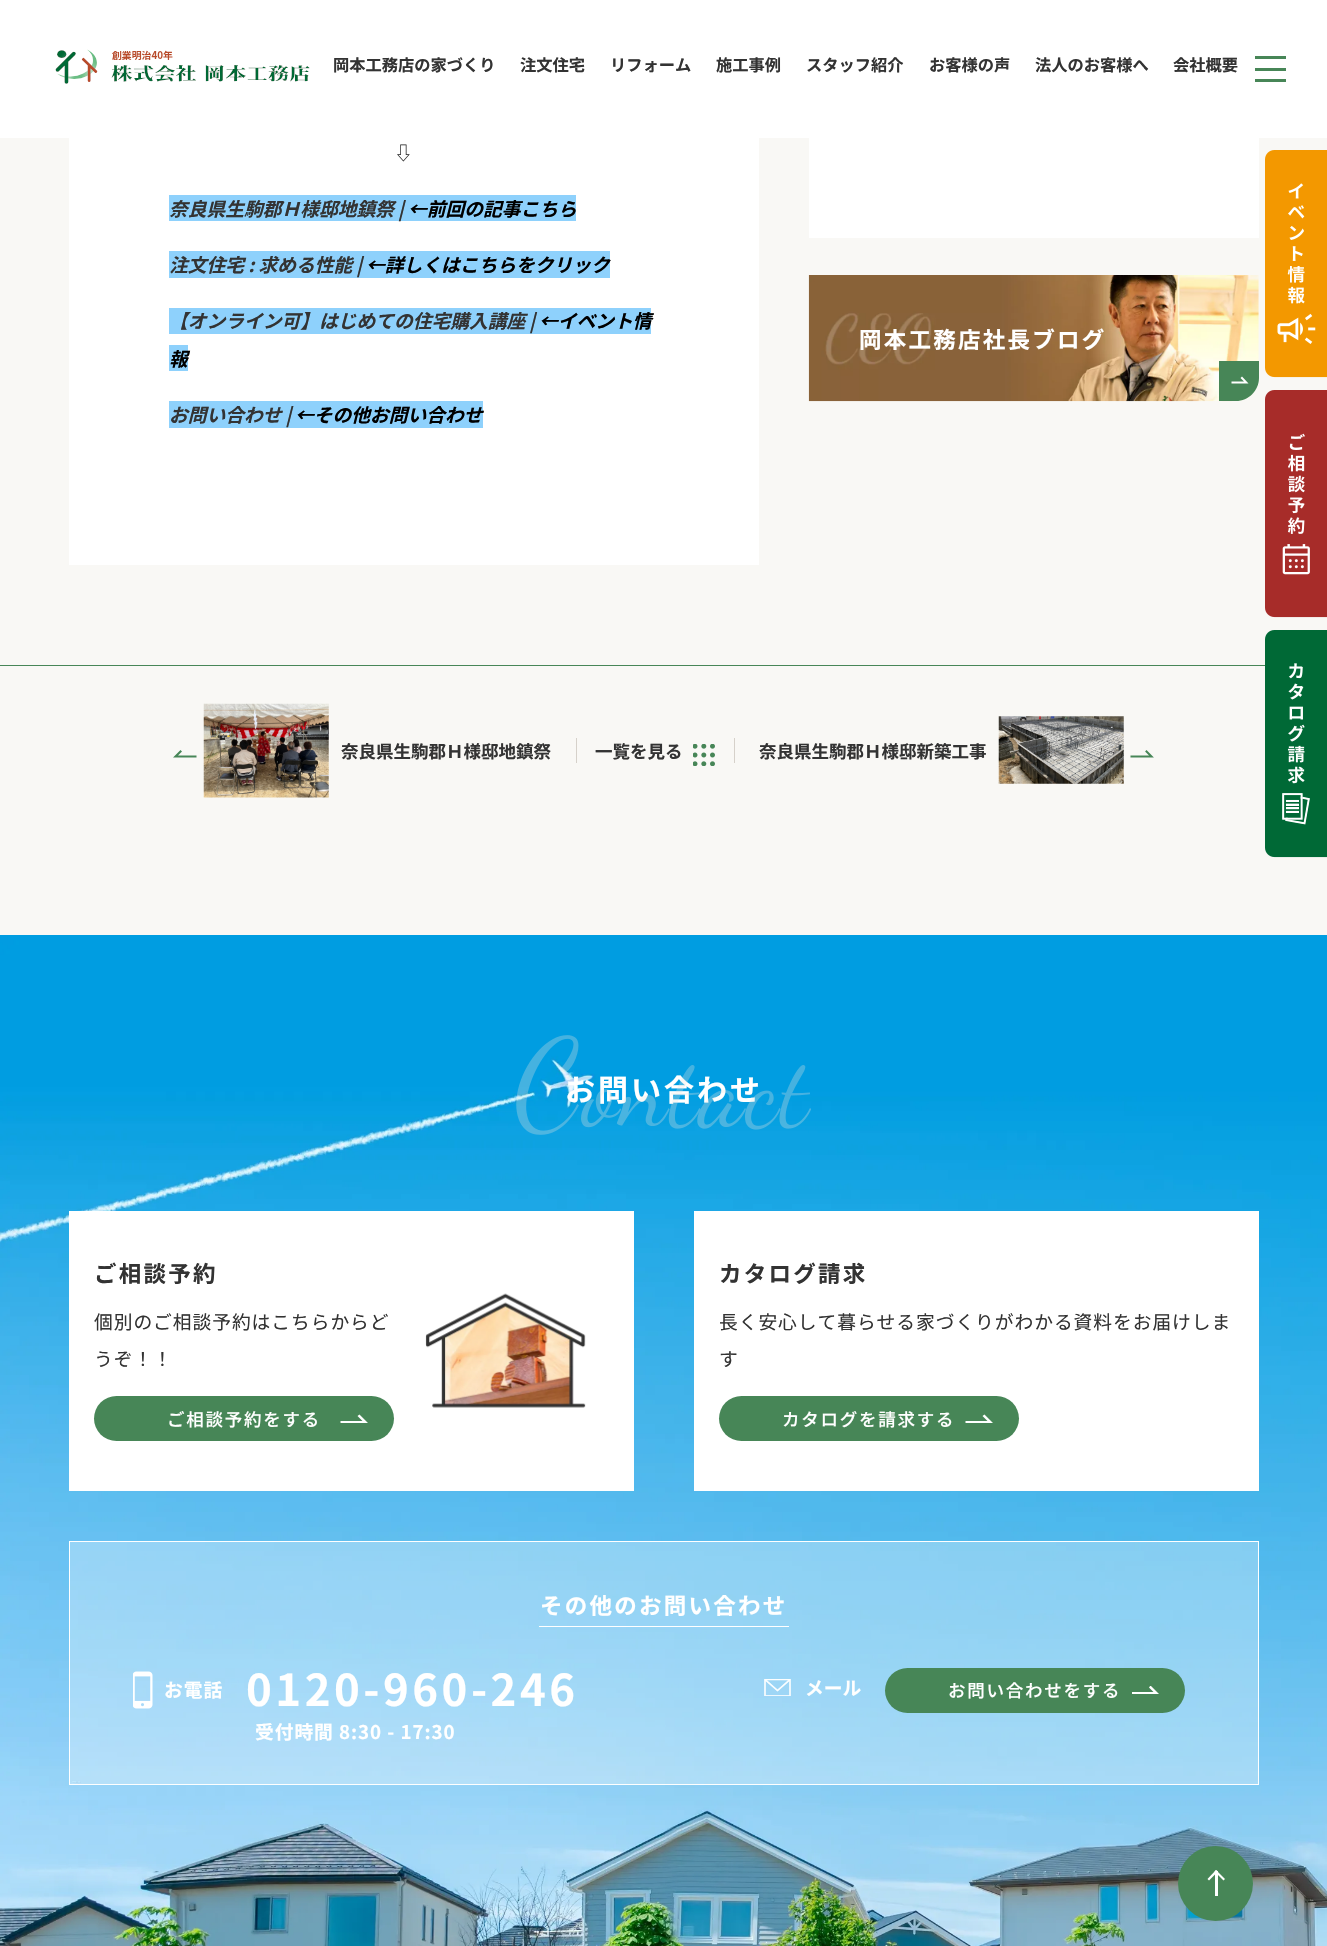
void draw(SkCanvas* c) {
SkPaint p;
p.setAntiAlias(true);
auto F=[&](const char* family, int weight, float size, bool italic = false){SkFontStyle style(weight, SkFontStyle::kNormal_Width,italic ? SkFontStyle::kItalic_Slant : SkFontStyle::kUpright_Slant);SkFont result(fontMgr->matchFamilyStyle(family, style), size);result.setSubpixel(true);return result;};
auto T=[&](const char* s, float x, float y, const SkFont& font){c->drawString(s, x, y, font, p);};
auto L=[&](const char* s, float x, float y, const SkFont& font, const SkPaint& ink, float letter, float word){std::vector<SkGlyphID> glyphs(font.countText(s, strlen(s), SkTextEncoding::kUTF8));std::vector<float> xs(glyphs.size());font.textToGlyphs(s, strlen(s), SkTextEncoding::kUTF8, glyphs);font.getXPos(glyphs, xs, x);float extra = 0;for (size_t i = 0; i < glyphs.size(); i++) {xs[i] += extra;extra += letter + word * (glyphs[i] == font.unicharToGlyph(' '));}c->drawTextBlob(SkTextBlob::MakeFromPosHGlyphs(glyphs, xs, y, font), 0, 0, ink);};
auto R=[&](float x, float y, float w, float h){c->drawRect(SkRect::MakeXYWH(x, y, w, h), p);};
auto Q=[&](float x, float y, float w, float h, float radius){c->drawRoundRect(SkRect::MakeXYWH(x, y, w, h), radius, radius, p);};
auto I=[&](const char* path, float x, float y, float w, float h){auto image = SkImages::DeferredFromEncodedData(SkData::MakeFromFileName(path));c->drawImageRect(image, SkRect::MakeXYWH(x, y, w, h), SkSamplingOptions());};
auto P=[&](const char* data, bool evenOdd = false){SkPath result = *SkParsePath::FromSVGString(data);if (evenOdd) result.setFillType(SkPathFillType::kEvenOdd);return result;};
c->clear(0xfff9f8f5);
p.setColor(0xffffffff);
R(0,0,1327,138);
I("1.png",55,49,255,35);
auto f1 = F("Noto Sans JP",700,16.25);
p.setColor(0xff333333);
T("岡本工務店の家づくり",333,71,f1);
T("注文住宅",520,71,f1);
T("リフォーム",610,71,f1);
T("施工事例",716,71,f1);
T("スタッフ紹介",806,71,f1);
T("お客様の声",929,71,f1);
T("法人のお客様へ",1035,71,f1);
T("会社概要",1173,71,f1);
p.setColor(0xff478657);
R(1255,56,31,3);
R(1255,68,31,3);
R(1255,79,31,3);
p.setColor(0xffffffff);
R(69,138,690,427);
auto f2 = F("Noto Sans JP",400,18.75);
p.setColor(0xff333333);
T("⇩",394,160,f2);
p.setColor(0xff8ed1fc);
R(169,195,407,26);
auto f3 = F("Noto Sans JP",700,18.75,true);
p.setColor(0xff333333);
T("奈良県生駒郡Ｈ様邸地鎮祭 |",169,216,f3);
p.setColor(0xff000000);
T("←前回の記事こちら",408,216,f3);
p.setColor(0xff8ed1fc);
R(169,251,441,27);
p.setColor(0xff333333);
T("注文住宅 : 求める性能 |",169,272,f3);
p.setColor(0xff000000);
T("←詳しくはこちらをクリック",366,272,f3);
p.setColor(0xff8ed1fc);
R(169,308,482,26);
p.setColor(0xff333333);
T("【オンライン可】はじめての住宅購入講座 |",169,328,f3);
p.setColor(0xff000000);
T("←イベント情",539,328,f3);
p.setColor(0xff8ed1fc);
R(169,345,19,26);
p.setColor(0xff000000);
T("報",169,366,f3);
p.setColor(0xff8ed1fc);
R(169,401,314,27);
p.setColor(0xff333333);
T("お問い合わせ |",169,422,f3);
p.setColor(0xff000000);
T("←その他お問い合わせ",295,422,f3);
p.setColor(0xffffffff);
R(809,138,450,100);
I("2.png",808,275,451,127);
auto f4 = F("Noto Sans JP",700,22.5);
L("岡本工務店社長ブログ",859,348,f4,p,2.25,0);
p.setColor(0xff478657);
c->drawPath(P("M1219 361h40v17c0 12.5-10.5 23-23 23h-17z"),p);
p.setColor(0xffffffff);
c->drawPath(P("M1248.5 383.5h-17v-2h12.5l-3.5-3.5l1.5-1.5z"),p);
p.setColor(0xff478657);
R(0,665,1265,1);
c->drawPath(P("M196.5 757.5h-23.5l7.5-7.5l1.5 1.5l-4 4h18.5z"),p);
I("3.png",203,703,126,95);
auto f5 = F("Noto Sans JP",700,17.5);
p.setColor(0xff333333);
T("奈良県生駒郡Ｈ様邸地鎮祭",341,758,f5);
p.setColor(0xffd6d1ca);
R(576,738,1,25);
p.setColor(0xff333333);
T("一覧を見る",595,758,f5);
I("4.png",693,744,22,22);
p.setColor(0xffd6d1ca);
R(734,738,1,25);
p.setColor(0xff333333);
T("奈良県生駒郡Ｈ様邸新築工事",759,758,f5);
I("5.png",998,716,126,68);
p.setStroke(true);
p.setStrokeWidth(2);
p.setStrokeCap(SkPaint::kSquare_Cap);
p.setColor(0xff478657);
c->drawPath(P("M1131.5 756.5h20l-5-5"),p);
I("6.png",1265,150,62,228);
I("7.png",1265,390,62,228);
I("8.png",1265,630,62,228);
I("9.png",0,935,1327,1011);
auto f6 = F("Noto Sans JP",700,30);
p.setStroke(false);
p.setColor(0xffffffff);
L("お問い合わせ",565,1101,f6,p,3,0);
I("10.png",516,1035,295,100);
R(69,1211,565,280);
I("11.png",425,1293,161,115);
p.setColor(0xff333333);
L("ご相談予約",94,1282,f4,p,2.25,0);
L("個別のご相談予約はこちらからど",94,1329,f2,p,.95,0);
L("うぞ！！",94,1366,f2,p,.95,0);
p.setColor(0xff478657);
Q(94,1396,300,45,22.5);
auto f7 = F("Noto Sans JP",500,17.5);
p.setColor(0xffffffff);
L("ご相談予約をする",167,1426,f7,p,1.75,0);
c->drawPath(P("M368 1423h-27.5v-2h22l-5-5l2-1.5z"),p);
R(694,1211,565,280);
p.setColor(0xff333333);
L("カタログ請求",719,1282,f4,p,2.25,0);
L("長く安心して暮らせる家づくりがわかる資料をお届けしま",719,1329,f2,p,.95,0);
L("す",719,1366,f2,p,.95,0);
p.setColor(0xff478657);
Q(719,1396,300,45,22.5);
p.setColor(0xffffffff);
L("カタログを請求する",782,1426,f7,p,1.75,0);
c->drawPath(P("M993 1423h-27.5v-2h22l-5-5l2-1.5z"),p);
p.setColor(0x4dffffff);
c->drawRect(SkRect::MakeXYWH(69.5,1541.5,1189,243),p);
p.setStroke(true);
p.setStrokeWidth(1);
p.setStrokeCap(SkPaint::kButt_Cap);
p.setColor(0xffffffff);
c->drawRect(SkRect::MakeXYWH(69.5,1541.5,1189,243),p);
p.setStroke(false);
L("その他のお問い合わせ",540,1614,f4,p,2.25,0);
R(539,1626,250,1);
I("12.png",133,1671,20,38);
auto f8 = F("Noto Sans JP",700,18.75);
L("お電話",164,1697,f8,p,.95,0);
auto f9 = F("Noto Sans JP",700,43.75);
L("0120-960-246",246,1706,f9,p,3.5,0);
L("受付時間 8:30 - 17:30",255,1739,f8,p,.95,0);
I("13.png",764,1679,27,17);
T("メール",805,1695,f8);
p.setColor(0xff478657);
Q(885,1668,300,45,22.5);
p.setColor(0xffffffff);
L("お問い合わせをする",948,1697,f7,p,1.75,0);
c->save();
c->clipRect(SkRect::MakeXYWH(1131,1686,29,8));
c->drawPath(P("M1159.5 1694.5h-27.5v-2.5h21.5l-4.5-4.5l1.5-2z"),p);
c->restore();
p.setColor(0xff478657);
c->drawCircle(1215.5,1883.5,37.5,p);
p.setColor(0xffffffff);
R(1215,1871,3,25);
c->drawPath(P("M1207.5 1879l8.5-9l2 1.5l-9 9z"),p);
c->drawPath(P("M1214.5 1871.5l1.5-1.5l9 9l-1.5 1.5z"),p);
}
